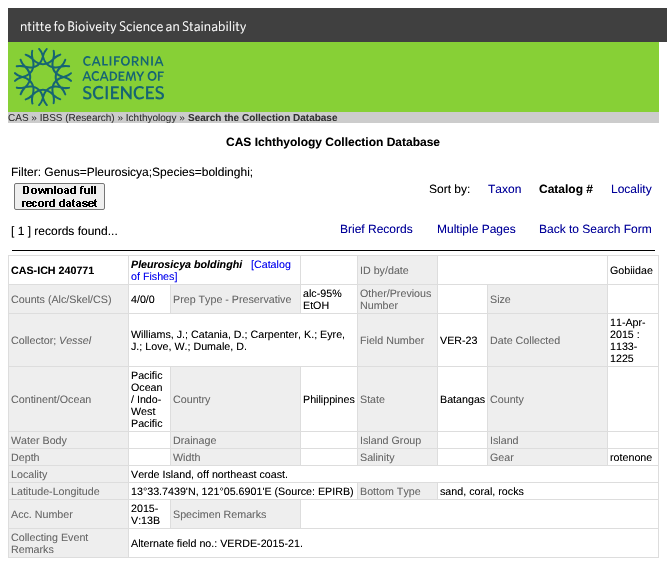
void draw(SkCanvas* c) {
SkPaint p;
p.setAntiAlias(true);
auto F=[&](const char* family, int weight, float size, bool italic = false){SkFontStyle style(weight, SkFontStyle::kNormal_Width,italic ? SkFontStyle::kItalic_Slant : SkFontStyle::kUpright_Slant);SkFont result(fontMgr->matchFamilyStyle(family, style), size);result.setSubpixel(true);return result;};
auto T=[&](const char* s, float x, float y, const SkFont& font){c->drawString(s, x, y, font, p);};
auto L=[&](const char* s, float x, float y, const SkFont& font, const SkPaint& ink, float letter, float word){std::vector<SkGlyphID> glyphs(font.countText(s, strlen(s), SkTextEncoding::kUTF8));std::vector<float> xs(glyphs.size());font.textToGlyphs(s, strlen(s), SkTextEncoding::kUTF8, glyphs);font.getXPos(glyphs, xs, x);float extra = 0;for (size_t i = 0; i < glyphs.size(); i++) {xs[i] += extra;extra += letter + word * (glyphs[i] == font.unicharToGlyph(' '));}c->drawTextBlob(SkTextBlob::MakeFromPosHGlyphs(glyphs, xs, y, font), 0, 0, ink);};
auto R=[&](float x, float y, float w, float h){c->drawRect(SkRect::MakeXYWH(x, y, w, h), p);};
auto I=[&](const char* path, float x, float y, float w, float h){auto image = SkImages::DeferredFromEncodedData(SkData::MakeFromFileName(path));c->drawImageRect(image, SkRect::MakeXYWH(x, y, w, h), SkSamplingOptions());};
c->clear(0xffffffff);
p.setColor(0xff404040);
R(8,8,659,34);
auto f1 = F("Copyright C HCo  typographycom",300,14);
p.setColor(0xffffffff);
L("Institute for Biodiversity Science and Sustainability",20,31,f1,p,0,-1);
p.setColor(0xff87d036);
R(8,42,651,70);
I("1.png",14,48,150,58);
p.setColor(0xffcccccc);
R(8,112,651,11);
auto f2 = F("Liberation Sans",400,10);
p.setColor(0xff333333);
T("CAS » IBSS (Research) » Ichthyology »",8,121,f2);
auto f3 = F("Liberation Sans",700,10);
T("Search the Collection Database",188,121,f3);
auto f4 = F("Liberation Sans",700,12);
p.setColor(0xff000000);
T("CAS Ichthyology Collection Database",226,146,f4);
auto f5 = F("Liberation Sans",400,12);
T("Filter: Genus=Pleurosicya;Species=boldinghi;",11,176,f5);
p.setColor(0xffefefef);
c->drawRoundRect(SkRect::MakeXYWH(14.5,183.5,90,26),1.5,1.5,p);
p.setStroke(true);
p.setStrokeWidth(1);
p.setColor(0xff767676);
c->drawRoundRect(SkRect::MakeXYWH(14.5,183.5,90,26),1.5,1.5,p);
I("2.png",22,186,75,21);
p.setStroke(false);
p.setColor(0xff000000);
T("Sort by:",429,193,f5);
p.setColor(0xff000099);
T("Taxon",488,193,f5);
p.setColor(0xff000000);
T("Catalog #",539,193,f4);
p.setColor(0xff000099);
T("Locality",611,193,f5);
p.setColor(0xff000000);
T("[ 1 ] records found...",11,235,f5);
p.setColor(0xff000099);
T("Brief Records",340,233,f5);
T("Multiple Pages",437,233,f5);
T("Back to Search Form",539,233,f5);
p.setColor(0xff000000);
R(12,250,643,1);
p.setColor(0xffdddddd);
R(8,255,651,303);
p.setColor(0xffffffff);
R(9,256,119,28);
auto f6 = F("Liberation Sans",700,10.7);
p.setColor(0xff000000);
T("CAS-ICH 240771",11,274,f6);
p.setColor(0xffffffff);
R(129,256,171,28);
auto f7 = F("Liberation Sans",700,10.7,true);
p.setColor(0xff000000);
T("Pleurosicya boldinghi",131,268,f7);
auto f8 = F("Liberation Sans",400,10.7);
p.setColor(0xff0000ee);
T("[Catalog",251,268,f8);
T("of Fishes]",131,280,f8);
p.setColor(0xffffffff);
R(301,256,56,28);
p.setColor(0xffeeeeee);
R(358,256,79,28);
p.setColor(0xff666666);
T("ID by/date",360,274,f8);
p.setColor(0xffffffff);
R(438,256,169,28);
R(608,256,50,28);
p.setColor(0xff000000);
T("Gobiidae",610,274,f8);
p.setColor(0xffeeeeee);
R(9,285,119,28);
p.setColor(0xff666666);
T("Counts (Alc/Skel/CS)",11,303,f8);
p.setColor(0xffffffff);
R(129,285,41,28);
p.setColor(0xff000000);
T("4/0/0",131,303,f8);
p.setColor(0xffeeeeee);
R(171,285,129,28);
p.setColor(0xff666666);
T("Prep Type - Preservative",173,303,f8);
p.setColor(0xffffffff);
R(301,285,56,28);
p.setColor(0xff000000);
T("alc-95%",303,297,f8);
T("EtOH",303,309,f8);
p.setColor(0xffeeeeee);
R(358,285,79,28);
p.setColor(0xff666666);
T("Other/Previous",360,297,f8);
T("Number",360,309,f8);
p.setColor(0xffffffff);
R(438,285,49,28);
p.setColor(0xffeeeeee);
R(488,285,119,28);
p.setColor(0xff666666);
T("Size",490,303,f8);
p.setColor(0xffffffff);
R(608,285,50,28);
p.setColor(0xffeeeeee);
R(9,314,119,52);
p.setColor(0xff666666);
T("Collector;",11,344,f8);
auto f9 = F("Liberation Sans",400,10.7,true);
T("Vessel",59,344,f9);
p.setColor(0xffffffff);
R(129,314,228,52);
p.setColor(0xff000000);
T("Williams, J.; Catania, D.; Carpenter, K.; Eyre,",131,338,f8);
T("J.; Love, W.; Dumale, D.",131,350,f8);
p.setColor(0xffeeeeee);
R(358,314,79,52);
p.setColor(0xff666666);
T("Field Number",360,344,f8);
p.setColor(0xffffffff);
R(438,314,49,52);
p.setColor(0xff000000);
T("VER-23",440,344,f8);
p.setColor(0xffeeeeee);
R(488,314,119,52);
p.setColor(0xff666666);
T("Date Collected",490,344,f8);
p.setColor(0xffffffff);
R(608,314,50,52);
p.setColor(0xff000000);
T("11-Apr-",610,326,f8);
T("2015 :",610,338,f8);
T("1133-",610,350,f8);
T("1225",610,362,f8);
p.setColor(0xffeeeeee);
R(9,367,119,64);
p.setColor(0xff666666);
T("Continent/Ocean",11,403,f8);
p.setColor(0xffffffff);
R(129,367,41,64);
p.setColor(0xff000000);
T("Pacific",131,379,f8);
T("Ocean",131,391,f8);
T("/ Indo-",131,403,f8);
T("West",131,415,f8);
T("Pacific",131,427,f8);
p.setColor(0xffeeeeee);
R(171,367,129,64);
p.setColor(0xff666666);
T("Country",173,403,f8);
p.setColor(0xffffffff);
R(301,367,56,64);
p.setColor(0xff000000);
T("Philippines",303,403,f8);
p.setColor(0xffeeeeee);
R(358,367,79,64);
p.setColor(0xff666666);
T("State",360,403,f8);
p.setColor(0xffffffff);
R(438,367,49,64);
p.setColor(0xff000000);
T("Batangas",440,403,f8);
p.setColor(0xffeeeeee);
R(488,367,119,64);
p.setColor(0xff666666);
T("County",490,403,f8);
p.setColor(0xffffffff);
R(608,367,50,64);
p.setColor(0xffeeeeee);
R(9,432,119,16);
p.setColor(0xff666666);
T("Water Body",11,444,f8);
p.setColor(0xffffffff);
R(129,432,41,16);
p.setColor(0xffeeeeee);
R(171,432,129,16);
p.setColor(0xff666666);
T("Drainage",173,444,f8);
p.setColor(0xffffffff);
R(301,432,56,16);
p.setColor(0xffeeeeee);
R(358,432,79,16);
p.setColor(0xff666666);
T("Island Group",360,444,f8);
p.setColor(0xffffffff);
R(438,432,49,16);
p.setColor(0xffeeeeee);
R(488,432,119,16);
p.setColor(0xff666666);
T("Island",490,444,f8);
p.setColor(0xffffffff);
R(608,432,50,16);
p.setColor(0xffeeeeee);
R(9,449,119,16);
p.setColor(0xff666666);
T("Depth",11,461,f8);
p.setColor(0xffffffff);
R(129,449,41,16);
p.setColor(0xffeeeeee);
R(171,449,129,16);
p.setColor(0xff666666);
T("Width",173,461,f8);
p.setColor(0xffffffff);
R(301,449,56,16);
p.setColor(0xffeeeeee);
R(358,449,79,16);
p.setColor(0xff666666);
T("Salinity",360,461,f8);
p.setColor(0xffffffff);
R(438,449,49,16);
p.setColor(0xffeeeeee);
R(488,449,119,16);
p.setColor(0xff666666);
T("Gear",490,461,f8);
p.setColor(0xffffffff);
R(608,449,50,16);
p.setColor(0xff000000);
T("rotenone",610,461,f8);
p.setColor(0xffeeeeee);
R(9,466,119,16);
p.setColor(0xff666666);
T("Locality",11,478,f8);
p.setColor(0xffffffff);
R(129,466,529,16);
p.setColor(0xff000000);
T("Verde Island, off northeast coast.",131,478,f8);
p.setColor(0xffeeeeee);
R(9,483,119,16);
p.setColor(0xff666666);
T("Latitude-Longitude",11,495,f8);
p.setColor(0xffffffff);
R(129,483,228,16);
p.setColor(0xff000000);
T("13°33.7439'N, 121°05.6901'E (Source: EPIRB)",131,495,f8);
p.setColor(0xffeeeeee);
R(358,483,79,16);
p.setColor(0xff666666);
T("Bottom Type",360,495,f8);
p.setColor(0xffffffff);
R(438,483,220,16);
p.setColor(0xff000000);
T("sand, coral, rocks",440,495,f8);
p.setColor(0xffeeeeee);
R(9,500,119,28);
p.setColor(0xff666666);
T("Acc. Number",11,518,f8);
p.setColor(0xffffffff);
R(129,500,41,28);
p.setColor(0xff000000);
T("2015-",131,512,f8);
T("V:13B",131,524,f8);
p.setColor(0xffeeeeee);
R(171,500,129,28);
p.setColor(0xff666666);
T("Specimen Remarks",173,518,f8);
p.setColor(0xffffffff);
R(301,500,357,28);
p.setColor(0xffeeeeee);
R(9,529,119,28);
p.setColor(0xff666666);
T("Collecting Event",11,541,f8);
T("Remarks",11,553,f8);
p.setColor(0xffffffff);
R(129,529,529,28);
p.setColor(0xff000000);
T("Alternate field no.: VERDE-2015-21.",131,547,f8);
}
